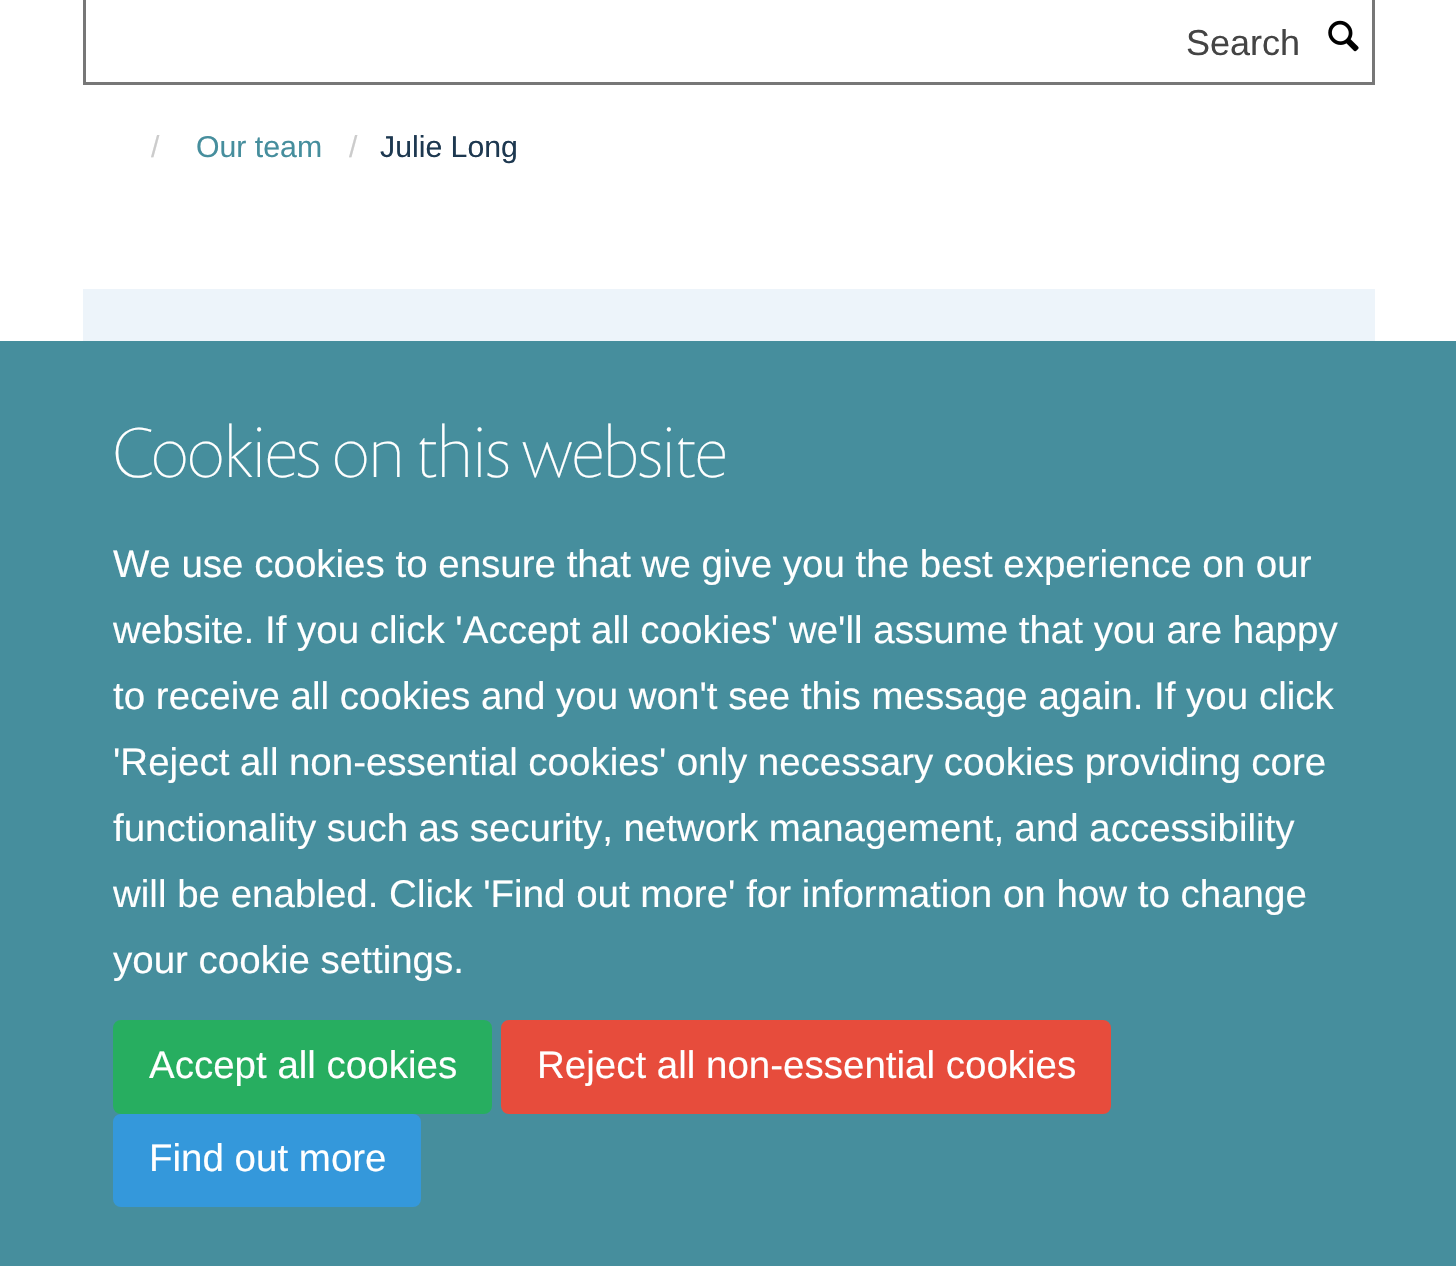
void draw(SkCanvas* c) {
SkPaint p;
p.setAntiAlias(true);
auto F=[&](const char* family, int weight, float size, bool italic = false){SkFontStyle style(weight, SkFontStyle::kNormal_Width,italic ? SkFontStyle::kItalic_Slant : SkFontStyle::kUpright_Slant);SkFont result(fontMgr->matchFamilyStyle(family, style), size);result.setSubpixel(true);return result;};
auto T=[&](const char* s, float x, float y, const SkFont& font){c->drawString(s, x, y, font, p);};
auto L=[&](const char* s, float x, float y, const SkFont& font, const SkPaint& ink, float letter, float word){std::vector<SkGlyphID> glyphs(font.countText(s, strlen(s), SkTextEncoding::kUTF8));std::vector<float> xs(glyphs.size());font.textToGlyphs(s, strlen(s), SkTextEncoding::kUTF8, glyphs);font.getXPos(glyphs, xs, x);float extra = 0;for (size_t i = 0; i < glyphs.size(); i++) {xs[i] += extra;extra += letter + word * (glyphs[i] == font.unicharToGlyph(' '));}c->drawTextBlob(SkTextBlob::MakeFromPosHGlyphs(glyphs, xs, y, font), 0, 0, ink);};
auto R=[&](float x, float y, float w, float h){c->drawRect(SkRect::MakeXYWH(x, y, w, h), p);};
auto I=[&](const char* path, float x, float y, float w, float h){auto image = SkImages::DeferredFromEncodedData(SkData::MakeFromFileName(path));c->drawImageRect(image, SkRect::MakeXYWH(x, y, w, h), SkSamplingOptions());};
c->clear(0xffffffff);
p.setStroke(true);
p.setStrokeWidth(3);
p.setColor(0xff777777);
c->drawRect(SkRect::MakeXYWH(84.5,-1.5,1289,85),p);
auto f1 = F("Liberation Sans",400,36);
p.setStroke(false);
p.setColor(0xff444444);
T("Search",1186,55,f1);
I("1.png",1328,20,31,32);
auto f2 = F("Liberation Sans",400,30.25);
p.setColor(0xffcccccc);
T("/",151,157,f2);
p.setColor(0xff468e9d);
T("Our team",196,157,f2);
p.setColor(0xffcccccc);
T("/",349,157,f2);
p.setColor(0xff1d3850);
T("Julie Long",380,157,f2);
p.setColor(0xffedf4fa);
R(83,289,1292,52);
p.setColor(0xff468e9d);
R(0,341,1456,925);
auto f3 = F("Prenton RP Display",100,71.5);
p.setColor(0xffffffff);
T("Cookies on this website",113,477,f3);
auto f4 = F("Liberation Sans",400,38.5);
T("We use cookies to ensure that we give you the best experience on our",113,577,f4);
T("website. If you click 'Accept all cookies' we'll assume that you are happy",113,643,f4);
T("to receive all cookies and you won't see this message again. If you click",113,709,f4);
L("'Reject all non-essential cookies' only necessary cookies providing core",113,775,f4,p,0,-.25);
L("functionality such as security, network management, and accessibility",113,841,f4,p,0,-.25);
T("will be enabled. Click 'Find out more' for information on how to change",113,907,f4);
T("your cookie settings.",113,973,f4);
p.setColor(0xff27ae60);
c->drawRoundRect(SkRect::MakeXYWH(114.5,1021.5,376,91),6.5,6.5,p);
p.setStroke(true);
c->drawRoundRect(SkRect::MakeXYWH(114.5,1021.5,376,91),6.5,6.5,p);
p.setStroke(false);
p.setColor(0xffffffff);
T("Accept all cookies",149,1078,f4);
p.setColor(0xffe74c3c);
c->drawRoundRect(SkRect::MakeXYWH(502.5,1021.5,607,91),6.5,6.5,p);
p.setStroke(true);
c->drawRoundRect(SkRect::MakeXYWH(502.5,1021.5,607,91),6.5,6.5,p);
p.setStroke(false);
p.setColor(0xffffffff);
T("Reject all non-essential cookies",537,1078,f4);
p.setColor(0xff3498db);
c->drawRoundRect(SkRect::MakeXYWH(114.5,1115.5,305,90),6.5,6.5,p);
p.setStroke(true);
c->drawRoundRect(SkRect::MakeXYWH(114.5,1115.5,305,90),6.5,6.5,p);
p.setStroke(false);
p.setColor(0xffffffff);
T("Find out more",149,1171,f4);
}
